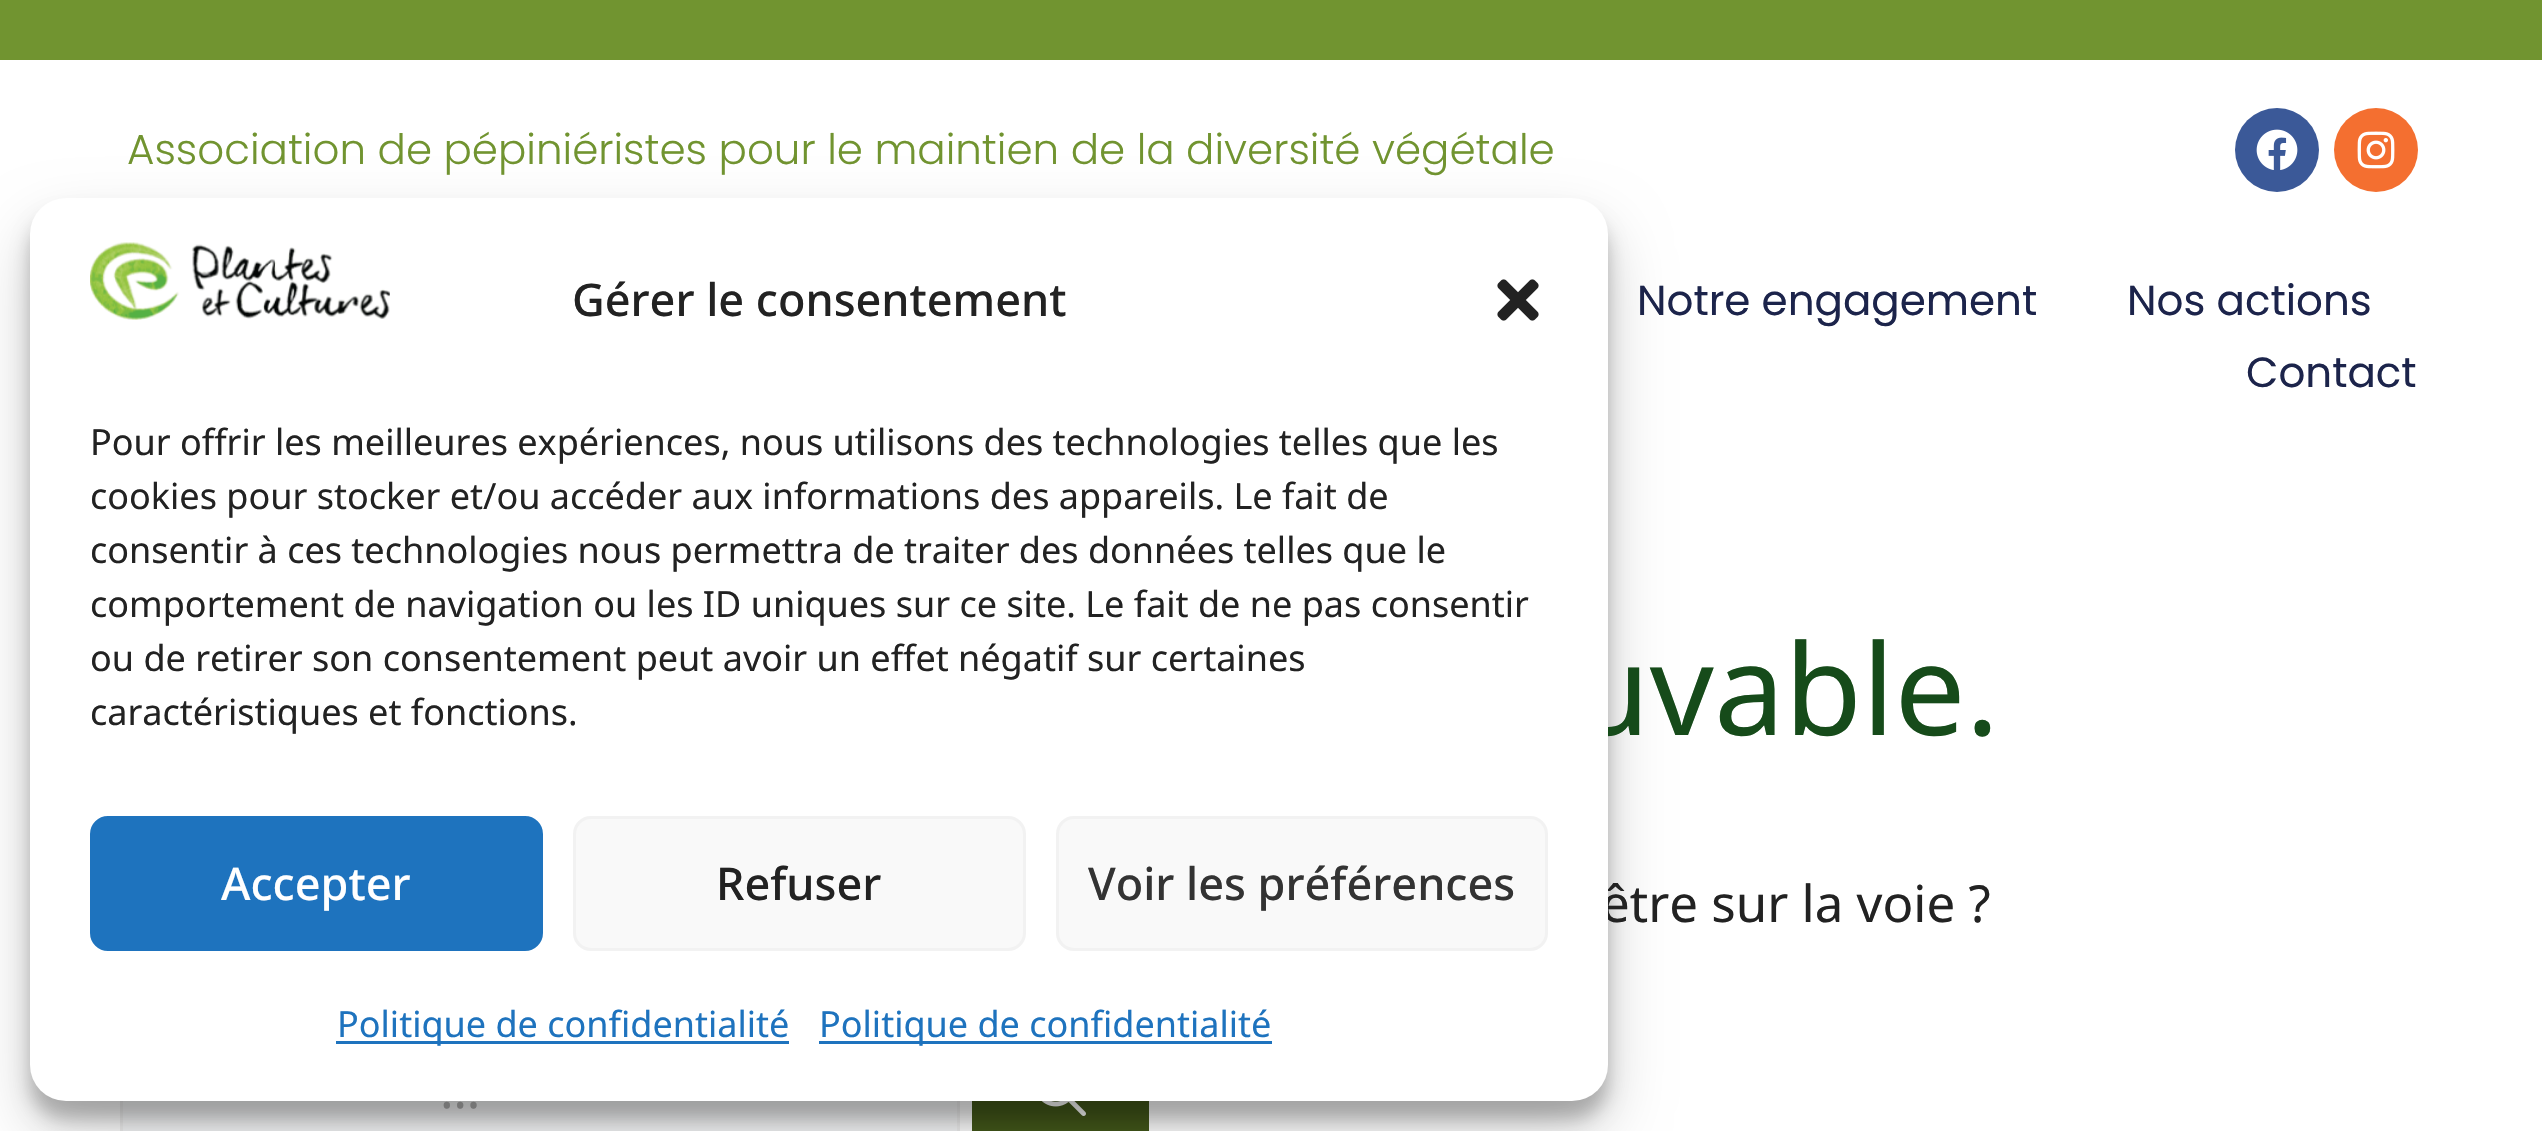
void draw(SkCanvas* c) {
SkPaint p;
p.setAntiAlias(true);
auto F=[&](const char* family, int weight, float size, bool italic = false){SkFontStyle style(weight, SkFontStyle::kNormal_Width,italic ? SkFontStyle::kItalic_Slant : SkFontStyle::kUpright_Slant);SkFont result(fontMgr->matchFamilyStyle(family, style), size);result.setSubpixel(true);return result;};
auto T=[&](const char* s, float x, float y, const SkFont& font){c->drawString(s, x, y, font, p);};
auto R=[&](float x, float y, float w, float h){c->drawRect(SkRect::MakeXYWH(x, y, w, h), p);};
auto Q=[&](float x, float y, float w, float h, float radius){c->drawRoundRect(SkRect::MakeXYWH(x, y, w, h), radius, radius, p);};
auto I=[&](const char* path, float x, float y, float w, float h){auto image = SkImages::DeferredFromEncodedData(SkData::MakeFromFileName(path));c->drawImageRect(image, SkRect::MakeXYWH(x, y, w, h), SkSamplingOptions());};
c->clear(0xffffffff);
p.setColor(0xff719430);
R(0,0,2542,60);
auto f1 = F("Poppins",300,42);
T("Association de pépiniéristes pour le maintien de la diversité végétale",127,164,f1);
p.setColor(0xff3b5998);
c->drawCircle(2277,150,42,p);
I("1.png",2256,129,42,41);
p.setColor(0xfff46f30);
c->drawCircle(2376,150,42,p);
I("2.png",2357,131,38,38);
auto f2 = F("Poppins",400,42);
p.setColor(0xff1c244b);
T("Notre engagement",1637,315,f2);
T("Nos actions",2127,315,f2);
T("Contact",2246,387,f2);
p.setColor(0xfff7f8f9);
R(123,1101,834,30);
p.setStroke(true);
p.setStrokeWidth(3);
p.setColor(0xfff0f0f0);
c->drawRect(SkRect::MakeXYWH(121.5,1018.5,837,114),p);
p.setStroke(false);
p.setColor(0xff425719);
R(972,1101,177,30);
I("5.png",1041,1101,45,15);
p.setColor(0x3b000000);
p.setMaskFilter(SkMaskFilter::MakeBlur(kNormal_SkBlurStyle, 9));
c->drawRoundRect(SkRect::MakeXYWH(30,216,1578,903),36,36,p);
p.setMaskFilter(nullptr);
p.setColor(0x30000000);
p.setMaskFilter(SkMaskFilter::MakeBlur(kNormal_SkBlurStyle, 30));
c->drawRoundRect(SkRect::MakeXYWH(30,228,1578,903),36,36,p);
p.setMaskFilter(nullptr);
auto f3 = F("Noto Sans",400,126);
p.setColor(0xff164b1a);
T("uvable.",1572,735,f3);
auto f4 = F("Noto Sans",400,51);
p.setColor(0xff222222);
T("être sur la voie ?",1601,922,f4);
p.setColor(0xffffffff);
Q(30,198,1578,903,36);
I("3.png",90,242,300,78);
auto f5 = F("Noto Sans",500,45);
p.setColor(0xff222222);
T("Gérer le consentement",572,316,f5);
I("4.png",1497,279,42,42);
auto f6 = F("Noto Sans",400,36);
T("Pour offrir les meilleures expériences, nous utilisons des technologies telles que les",90,455,f6);
T("cookies pour stocker et/ou accéder aux informations des appareils. Le fait de",90,509,f6);
T("consentir à ces technologies nous permettra de traiter des données telles que le",90,563,f6);
T("comportement de navigation ou les ID uniques sur ce site. Le fait de ne pas consentir",90,617,f6);
T("ou de retirer son consentement peut avoir un effet négatif sur certaines",90,671,f6);
T("caractéristiques et fonctions.",90,725,f6);
p.setColor(0xff1e73be);
c->drawRoundRect(SkRect::MakeXYWH(91.5,817.5,450,132),16.5,16.5,p);
p.setStroke(true);
c->drawRoundRect(SkRect::MakeXYWH(91.5,817.5,450,132),16.5,16.5,p);
p.setStroke(false);
p.setColor(0xffffffff);
T("Accepter",221,900,f5);
p.setColor(0xfff9f9f9);
c->drawRoundRect(SkRect::MakeXYWH(574.5,817.5,450,132),16.5,16.5,p);
p.setStroke(true);
p.setColor(0xfff2f2f2);
c->drawRoundRect(SkRect::MakeXYWH(574.5,817.5,450,132),16.5,16.5,p);
p.setStroke(false);
p.setColor(0xff222222);
T("Refuser",716,900,f5);
p.setColor(0xfff9f9f9);
c->drawRoundRect(SkRect::MakeXYWH(1057.5,817.5,489,132),16.5,16.5,p);
p.setStroke(true);
p.setColor(0xfff2f2f2);
c->drawRoundRect(SkRect::MakeXYWH(1057.5,817.5,489,132),16.5,16.5,p);
p.setStroke(false);
p.setColor(0xff333333);
T("Voir les préférences",1088,900,f5);
p.setColor(0xff1e73be);
R(336,1041,453,3);
T("Politique de confidentialité",337,1037,f6);
R(819,1041,453,3);
T("Politique de confidentialité",819,1037,f6);
p.setColor(0xff757575);
T("…",440,1108,f4);
}
